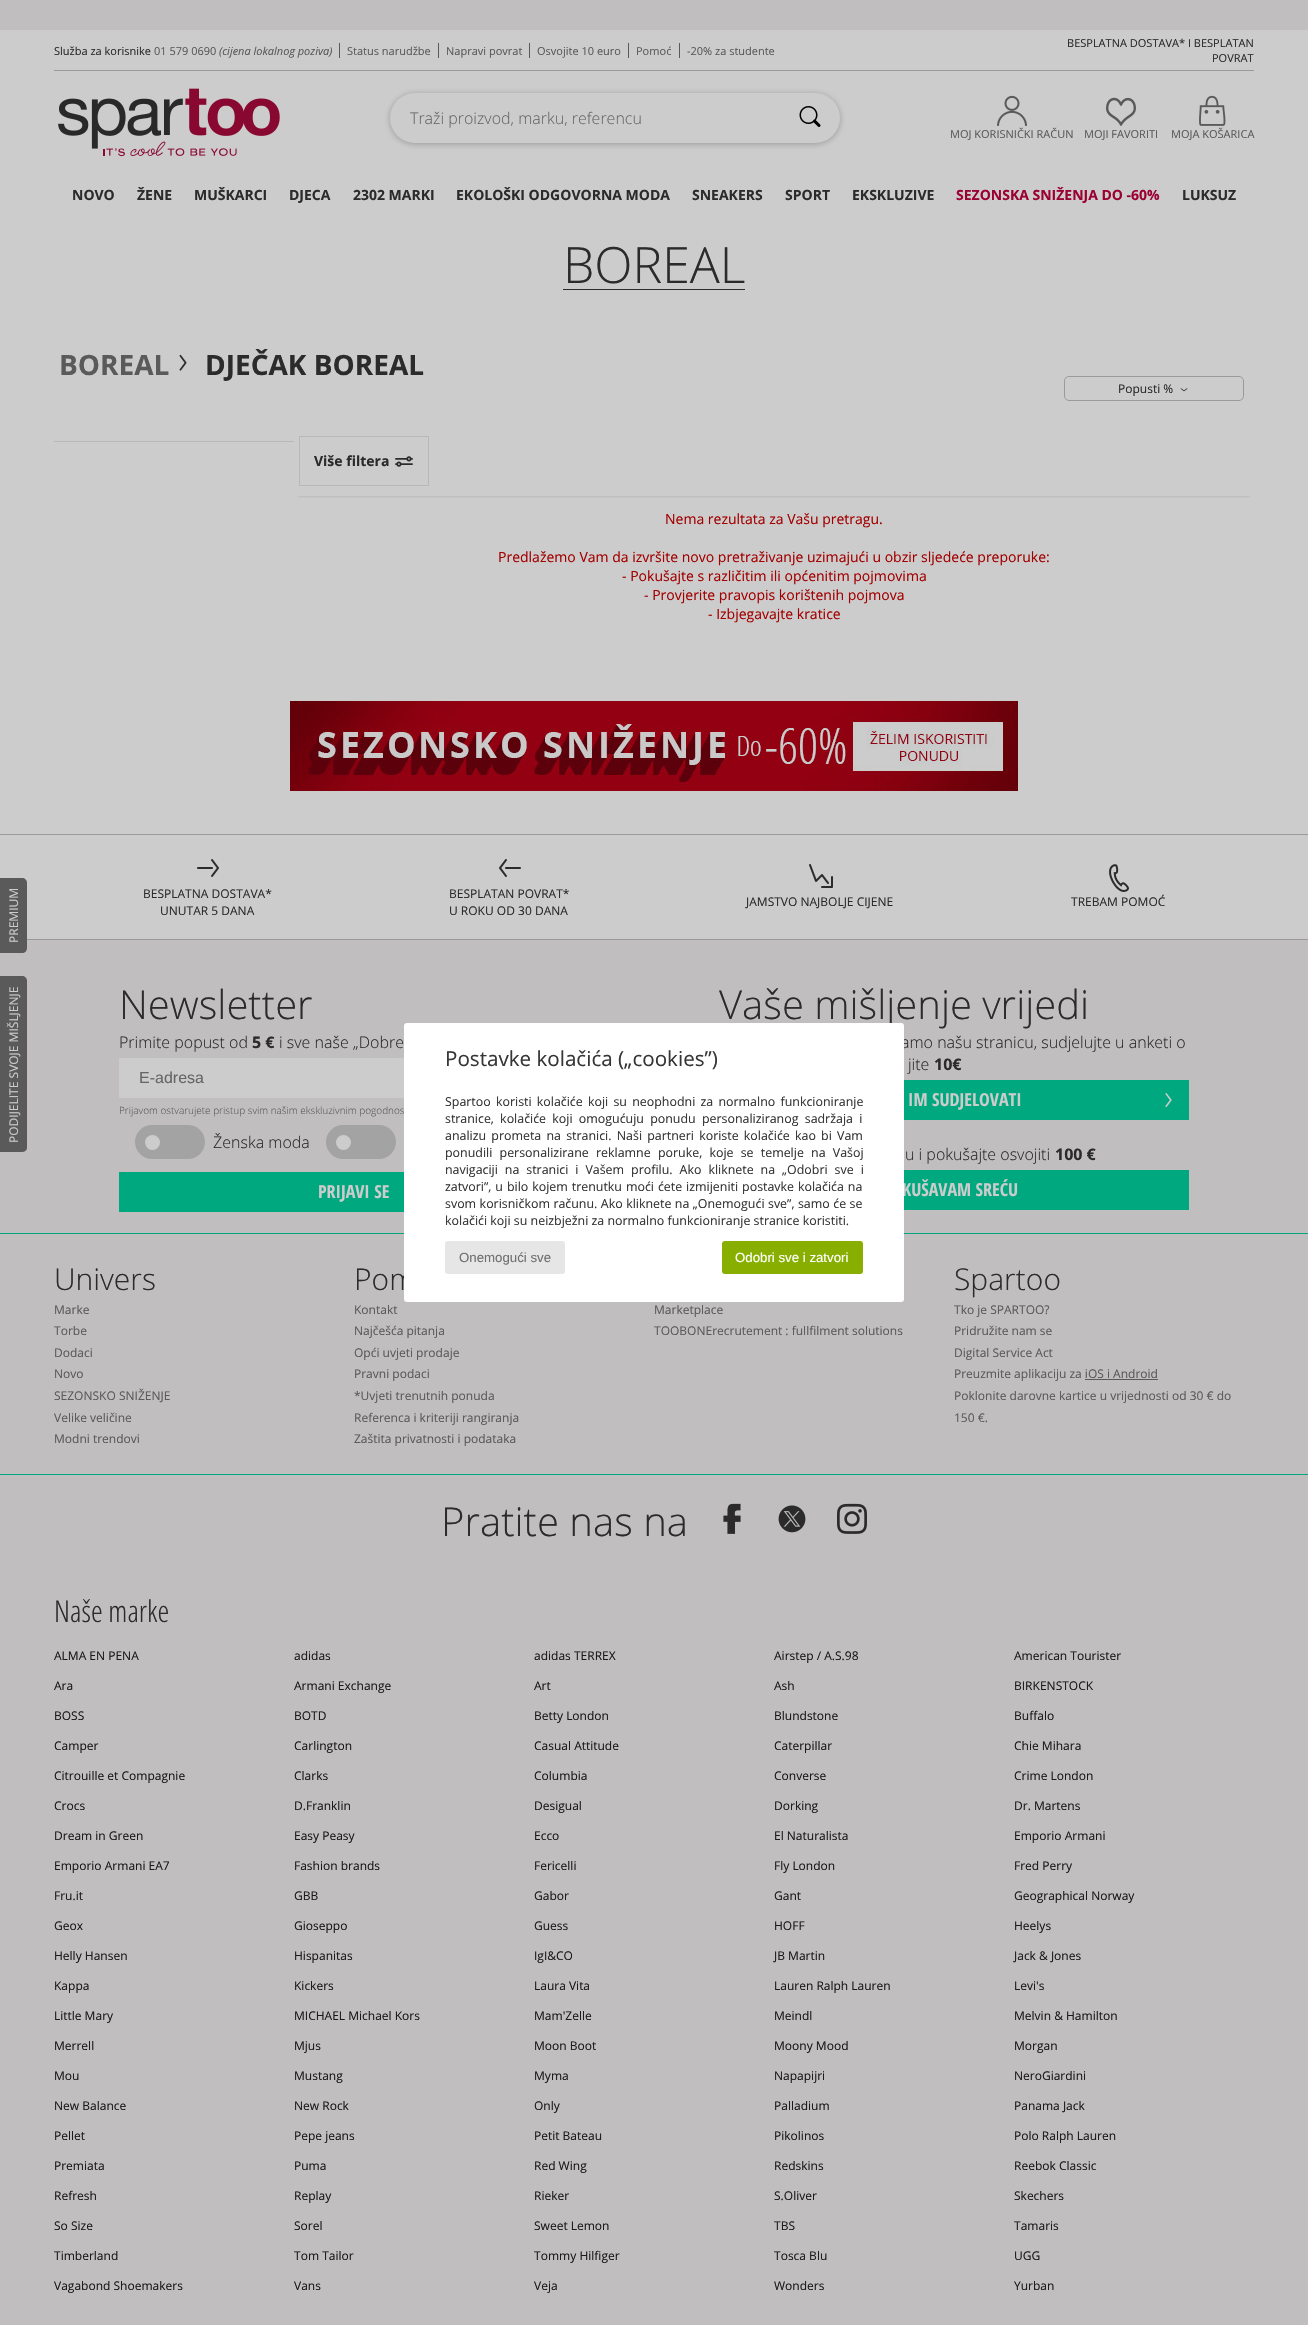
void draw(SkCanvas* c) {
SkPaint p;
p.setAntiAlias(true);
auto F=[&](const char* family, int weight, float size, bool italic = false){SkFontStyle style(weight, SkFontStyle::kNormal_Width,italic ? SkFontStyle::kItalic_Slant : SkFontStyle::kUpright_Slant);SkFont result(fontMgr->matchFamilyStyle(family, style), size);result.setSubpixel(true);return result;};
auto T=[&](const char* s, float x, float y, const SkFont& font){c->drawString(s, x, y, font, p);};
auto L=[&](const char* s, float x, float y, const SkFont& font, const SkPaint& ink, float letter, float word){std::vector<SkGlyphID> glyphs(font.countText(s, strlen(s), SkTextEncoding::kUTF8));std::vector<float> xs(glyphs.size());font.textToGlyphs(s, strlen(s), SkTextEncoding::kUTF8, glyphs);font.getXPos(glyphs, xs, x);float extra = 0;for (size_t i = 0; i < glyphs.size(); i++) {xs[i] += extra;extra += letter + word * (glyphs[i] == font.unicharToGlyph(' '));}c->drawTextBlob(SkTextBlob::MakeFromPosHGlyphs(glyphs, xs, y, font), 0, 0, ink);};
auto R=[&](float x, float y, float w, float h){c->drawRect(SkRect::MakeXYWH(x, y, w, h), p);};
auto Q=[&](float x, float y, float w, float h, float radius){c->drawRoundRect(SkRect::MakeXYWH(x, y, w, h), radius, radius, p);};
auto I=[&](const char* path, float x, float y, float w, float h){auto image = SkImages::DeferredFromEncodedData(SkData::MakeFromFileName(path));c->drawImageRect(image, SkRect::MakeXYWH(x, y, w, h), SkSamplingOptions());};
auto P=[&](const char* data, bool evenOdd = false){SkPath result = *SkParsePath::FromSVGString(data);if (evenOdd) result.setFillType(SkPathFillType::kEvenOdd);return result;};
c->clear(0xffcccccc);
p.setColor(0xffc0bebe);
R(0,0,1308,30);
p.setColor(0xff9a9a9a);
R(54,70,1200,1);
p.setColor(0xff5a5a5a);
R(339,43,1,15);
auto f1 = F("Open Sans",400,11);
p.setColor(0xff2b2b2b);
T("Služba za korisnike",54,55,f1);
p.setColor(0xff5a5a5a);
T("01 579 0690",154,55,f1);
auto f2 = F("Open Sans",400,11,true);
T("(cijena lokalnog poziva)",219,55,f2);
R(438,43,1,15);
T("Status narudžbe",347,55,f1);
R(529,43,1,15);
T("Napravi povrat",446,55,f1);
R(628,43,1,15);
T("Osvojite 10 euro",537,55,f1);
R(679,43,1,15);
T("Pomoć",636,55,f1);
T("-20% za studente",687,55,f1);
p.setColor(0xff2b2b2b);
T("BESPLATNA DOSTAVA* I BESPLATAN",1067,47,f1);
T("POVRAT",1212,62,f1);
I("1.png",58,88,222,69);
p.setColor(0x471a1a1d);
p.setMaskFilter(SkMaskFilter::MakeBlur(kNormal_SkBlurStyle, 3));
c->drawRoundRect(SkRect::MakeXYWH(390,94,450,50),25,25,p);
p.setMaskFilter(nullptr);
p.setColor(0xffcccccc);
Q(390,93,450,50,25);
auto f3 = F("Open Sans",300,16);
p.setColor(0xff666666);
T("Traži proizvod, marku, referencu",410,124,f3);
I("2.png",799,106,22,21);
I("3.png",997,95,30,31);
p.setColor(0xff5a5a5a);
T("MOJ KORISNIČKI RAČUN",950,138,f1);
I("4.png",1106,97,30,29);
T("MOJI FAVORITI",1084,138,f1);
I("5.png",1199,95,27,31);
T("MOJA KOŠARICA",1171,138,f1);
auto f4 = F("Open Sans",700,14);
p.setColor(0xff2b2b2b);
T("NOVO",72,200,f4);
T("ŽENE",137,200,f4);
T("MUŠKARCI",194,200,f4);
T("DJECA",289,200,f4);
T("2302 MARKI",353,200,f4);
T("EKOLOŠKI ODGOVORNA MODA",456,200,f4);
T("SNEAKERS",692,200,f4);
T("SPORT",785,200,f4);
T("EKSKLUZIVE",852,200,f4);
p.setColor(0xff9c0033);
T("SEZONSKA SNIŽENJA DO -60%",956,200,f4);
p.setColor(0xff2b2b2b);
T("LUKSUZ",1182,200,f4);
R(563,289,182,1);
auto f5 = F("Open Sans",300,50);
T("BOREAL",563,283,f5);
auto f6 = F("Open Sans",700,28);
p.setColor(0xff5a5a5a);
T("BOREAL",59,375,f6);
I("6.png",179,354,8,17);
p.setColor(0xff2b2b2b);
T("DJEČAK BOREAL",205,375,f6);
p.setStroke(true);
p.setStrokeWidth(1);
p.setColor(0xff9a9a9a);
c->drawRoundRect(SkRect::MakeXYWH(1064.5,376.5,179,24),4.5,4.5,p);
auto f7 = F("Open Sans",400,12);
p.setStroke(false);
p.setColor(0xff2b2b2b);
T("Popusti %",1118,393,f7);
I("7.png",1180,388,8,4);
c->save();
c->clipRect(SkRect::MakeXYWH(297,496,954,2));
p.setColor(0x40000000);
p.setMaskFilter(SkMaskFilter::MakeBlur(kNormal_SkBlurStyle, 2));
c->drawRect(SkRect::MakeXYWH(298,438,952,57),p);
p.setMaskFilter(nullptr);
c->restore();
p.setColor(0xffb8b8b8);
R(54,441,240,1);
p.setStroke(true);
c->drawRect(SkRect::MakeXYWH(299.5,436.5,129,49),p);
p.setStroke(false);
p.setColor(0xff2b2b2b);
T("Više filtera",314,466,f4);
I("8.png",395,456,18,11);
auto f8 = F("Open Sans",400,14);
p.setColor(0xffa30000);
T("Nema rezultata za Vašu pretragu.",665,524,f8);
T("Predlažemo Vam da izvršite novo pretraživanje uzimajući u obzir sljedeće preporuke:",498,562,f8);
T("- Pokušajte s različitim ili općenitim pojmovima",622,581,f8);
T("- Provjerite pravopis korištenih pojmova",644,600,f8);
T("- Izbjegavajte kratice",708,619,f8);
I("9.png",290,701,728,90);
p.setColor(0xffc0bebe);
R(0,940,1308,1385);
p.setColor(0xff5a5a5a);
c->drawPath(P("M0 953v-75h22c3 0 5 2 5 5v65c0 3-2 5-5 5z"),p);
p.setColor(0xffcccccc);
c->save();
c->rotate(-90,18,943);
T("PREMIUM",18,943,f7);
c->restore();
p.setColor(0xff5a5a5a);
c->drawPath(P("M0 1152v-176h22c3 0 5 2 5 5v167c0 2-2 4-5 4z"),p);
p.setColor(0xffcccccc);
c->save();
c->rotate(-90,18,1143);
T("PODIJELITE SVOJE MIŠLJENJE",18,1143,f7);
c->restore();
p.setColor(0xff9a9a9a);
R(0,834,1308,1);
R(27,939,1281,1);
I("10.png",197,859,22,18);
p.setColor(0xff2b2b2b);
T("BESPLATNA DOSTAVA*",143,898,f7);
T("UNUTAR 5 DANA",160,915,f7);
I("11.png",499,859,22,18);
T("BESPLATAN POVRAT*",449,898,f7);
T("U ROKU OD 30 DANA",449,915,f7);
I("12.png",809,864,24,24);
T("JAMSTVO NAJBOLJE CIJENE",746,906,f7);
I("13.png",1109,864,20,28);
T("TREBAM POMOĆ",1071,906,f7);
auto f9 = F("Open Sans",300,40);
T("Newsletter",119,1019,f9);
T("Primite popust od",119,1048,f3);
auto f10 = F("Open Sans",700,16);
T("5 €",252,1048,f10);
T("i sve naše „Dobre",279,1048,f3);
p.setColor(0xffcccccc);
R(119,1058,285,40);
auto f11 = F("Liberation Sans",400,16);
p.setColor(0xff666666);
T("E-adresa",139,1083,f11);
auto f12 = F("Open Sans",300,10);
p.setColor(0xff5a5a5a);
T("Prijavom ostvarujete pristup svim našim ekskluzivnim pogodnos",119,1114,f12);
p.setColor(0xffa3a3a3);
Q(135,1125,70,34,17);
p.setColor(0xffcccccc);
c->drawCircle(152.5,1142.5,7.5,p);
p.setColor(0xff2b2b2b);
T("Ženska moda",213,1148,f3);
p.setColor(0xffa3a3a3);
Q(326,1125,70,34,17);
p.setColor(0xffcccccc);
c->drawCircle(343.5,1142.5,7.5,p);
p.setColor(0xff00a87f);
R(119,1172,285,40);
auto f13 = F("Open Sans Condensed",700,18);
p.setColor(0xffcccccc);
T("PRIJAVI SE",318,1198,f13);
p.setColor(0xff2b2b2b);
T("Vaše mišljenje vrijedi",719,1019,f9);
T("amo našu stranicu, sudjelujte u anketi o",901,1048,f3);
T("jite",908,1070,f3);
T("10€",934,1070,f10);
p.setColor(0xff00a87f);
R(904,1080,285,40);
p.setColor(0xffcccccc);
T("IM SUDJELOVATI",908,1106,f13);
I("14.png",1165,1093,7,15);
p.setColor(0xff2b2b2b);
T("u i pokušajte osvojiti",905,1160,f3);
T("100 €",1055,1160,f10);
p.setColor(0xff00a87f);
R(904,1170,285,40);
p.setColor(0xffcccccc);
T("KUŠAVAM SREĆU",902,1196,f13);
p.setColor(0xff00a87f);
R(0,1233,1308,1);
auto f14 = F("Open Sans",300,30);
p.setColor(0xff2b2b2b);
T("Univers",54,1290,f14);
p.setColor(0xff5a5a5a);
T("Marke",54,1314,f7);
T("Torbe",54,1335,f7);
T("Dodaci",54,1357,f7);
T("Novo",54,1378,f7);
T("SEZONSKO SNIŽENJE",54,1400,f7);
T("Velike veličine",54,1422,f7);
T("Modni trendovi",54,1443,f7);
p.setColor(0xff2b2b2b);
T("Pom",354,1290,f14);
p.setColor(0xff5a5a5a);
T("Kontakt",354,1314,f7);
T("Najčešća pitanja",354,1335,f7);
T("Opći uvjeti prodaje",354,1357,f7);
T("Pravni podaci",354,1378,f7);
T("*Uvjeti trenutnih ponuda",354,1400,f7);
T("Referenca i kriteriji rangiranja",354,1422,f7);
T("Zaštita privatnosti i podataka",354,1443,f7);
T("Marketplace",654,1314,f7);
T("TOOBONErecrutement : fullfilment solutions",654,1335,f7);
p.setColor(0xff2b2b2b);
T("Spartoo",954,1290,f14);
p.setColor(0xff5a5a5a);
T("Tko je SPARTOO?",954,1314,f7);
T("Pridružite nam se",954,1335,f7);
T("Digital Service Act",954,1357,f7);
T("Preuzmite aplikaciju za iOS i Android",954,1378,f7);
R(1085,1379,73,1);
T("Poklonite darovne kartice u vrijednosti od 30 € do",954,1400,f7);
T("150 €.",954,1422,f7);
p.setColor(0xff00a87f);
R(0,1474,1308,1);
p.setColor(0xff2b2b2b);
T("Pratite nas na",441,1536,f9);
I("15.png",723,1503,18,31);
I("16.png",778,1505,28,28);
I("17.png",837,1503,30,31);
auto f15 = F("Open Sans Condensed",300,30);
T("Naše marke",54,1622,f15);
p.setColor(0xff1a1a1a);
T("ALMA EN PENA",54,1660,f7);
T("adidas",294,1660,f7);
T("adidas TERREX",534,1660,f7);
T("Airstep / A.S.98",774,1660,f7);
T("American Tourister",1014,1660,f7);
T("Ara",54,1690,f7);
T("Armani Exchange",294,1690,f7);
T("Art",534,1690,f7);
T("Ash",774,1690,f7);
T("BIRKENSTOCK",1014,1690,f7);
T("BOSS",54,1720,f7);
T("BOTD",294,1720,f7);
T("Betty London",534,1720,f7);
T("Blundstone",774,1720,f7);
T("Buffalo",1014,1720,f7);
T("Camper",54,1750,f7);
T("Carlington",294,1750,f7);
T("Casual Attitude",534,1750,f7);
T("Caterpillar",774,1750,f7);
T("Chie Mihara",1014,1750,f7);
T("Citrouille et Compagnie",54,1780,f7);
T("Clarks",294,1780,f7);
T("Columbia",534,1780,f7);
T("Converse",774,1780,f7);
T("Crime London",1014,1780,f7);
T("Crocs",54,1810,f7);
T("D.Franklin",294,1810,f7);
T("Desigual",534,1810,f7);
T("Dorking",774,1810,f7);
T("Dr. Martens",1014,1810,f7);
T("Dream in Green",54,1840,f7);
T("Easy Peasy",294,1840,f7);
T("Ecco",534,1840,f7);
T("El Naturalista",774,1840,f7);
T("Emporio Armani",1014,1840,f7);
T("Emporio Armani EA7",54,1870,f7);
T("Fashion brands",294,1870,f7);
T("Fericelli",534,1870,f7);
T("Fly London",774,1870,f7);
T("Fred Perry",1014,1870,f7);
T("Fru.it",54,1900,f7);
T("GBB",294,1900,f7);
T("Gabor",534,1900,f7);
T("Gant",774,1900,f7);
T("Geographical Norway",1014,1900,f7);
T("Geox",54,1930,f7);
T("Gioseppo",294,1930,f7);
T("Guess",534,1930,f7);
T("HOFF",774,1930,f7);
T("Heelys",1014,1930,f7);
T("Helly Hansen",54,1960,f7);
T("Hispanitas",294,1960,f7);
T("IgI&CO",534,1960,f7);
T("JB Martin",774,1960,f7);
T("Jack & Jones",1014,1960,f7);
T("Kappa",54,1990,f7);
T("Kickers",294,1990,f7);
T("Laura Vita",534,1990,f7);
T("Lauren Ralph Lauren",774,1990,f7);
T("Levi's",1014,1990,f7);
T("Little Mary",54,2020,f7);
T("MICHAEL Michael Kors",294,2020,f7);
T("Mam'Zelle",534,2020,f7);
T("Meindl",774,2020,f7);
T("Melvin & Hamilton",1014,2020,f7);
T("Merrell",54,2050,f7);
T("Mjus",294,2050,f7);
T("Moon Boot",534,2050,f7);
T("Moony Mood",774,2050,f7);
T("Morgan",1014,2050,f7);
T("Mou",54,2080,f7);
T("Mustang",294,2080,f7);
T("Myma",534,2080,f7);
T("Napapijri",774,2080,f7);
T("NeroGiardini",1014,2080,f7);
T("New Balance",54,2110,f7);
T("New Rock",294,2110,f7);
T("Only",534,2110,f7);
T("Palladium",774,2110,f7);
T("Panama Jack",1014,2110,f7);
T("Pellet",54,2140,f7);
T("Pepe jeans",294,2140,f7);
T("Petit Bateau",534,2140,f7);
T("Pikolinos",774,2140,f7);
T("Polo Ralph Lauren",1014,2140,f7);
T("Premiata",54,2170,f7);
T("Puma",294,2170,f7);
T("Red Wing",534,2170,f7);
T("Redskins",774,2170,f7);
T("Reebok Classic",1014,2170,f7);
T("Refresh",54,2200,f7);
T("Replay",294,2200,f7);
T("Rieker",534,2200,f7);
T("S.Oliver",774,2200,f7);
T("Skechers",1014,2200,f7);
T("So Size",54,2230,f7);
T("Sorel",294,2230,f7);
T("Sweet Lemon",534,2230,f7);
T("TBS",774,2230,f7);
T("Tamaris",1014,2230,f7);
T("Timberland",54,2260,f7);
T("Tom Tailor",294,2260,f7);
T("Tommy Hilfiger",534,2260,f7);
T("Tosca Blu",774,2260,f7);
T("UGG",1014,2260,f7);
T("Vagabond Shoemakers",54,2290,f7);
T("Vans",294,2290,f7);
T("Veja",534,2290,f7);
T("Wonders",774,2290,f7);
T("Yurban",1014,2290,f7);
p.setColor(0xffffffff);
Q(404,1023,500,279,3);
auto f16 = F("Open Sans",400,20.6);
p.setColor(0xff363636);
T("Postavke kolačića („cookies”)",445,1066,f16);
auto f17 = F("Open Sans",400,12.4);
L("Spartoo koristi kolačiće koji su neophodni za normalno funkcioniranje",445,1106,f17,p,0,2);
L("stranice, kolačiće koji omogućuju ponudu personaliziranog sadržaja i",445,1123,f17,p,0,3);
L("analizu prometa na stranici. Naši partneri koriste kolačiće kao bi Vam",445,1140,f17,p,0,2);
L("ponudili personalizirane reklamne poruke, koje se temelje na Vašoj",445,1157,f17,p,0,4);
L("navigaciji na stranici i Vašem profilu. Ako kliknete na „Odobri sve i",445,1174,f17,p,0,3.75);
L("zatvori”, u bilo kojem trenutku moći ćete izmijeniti postavke kolačića na",445,1191,f17,p,0,.75);
L("svom korisničkom računu. Ako kliknete na „Onemogući sve”, samo će se",445,1208,f17,p,0,.25);
T("kolačići koji su neizbježni za normalno funkcioniranje stranice koristiti.",445,1225,f17);
p.setColor(0xffe6e6e6);
Q(445,1241,120,33,3);
auto f18 = F("Liberation Sans",400,13.25);
p.setColor(0xff707070);
T("Onemogući sve",459,1262,f18);
p.setColor(0xff88af00);
Q(722,1241,141,33,3);
p.setColor(0xffffffff);
T("Odobri sve i zatvori",735,1262,f18);
}
